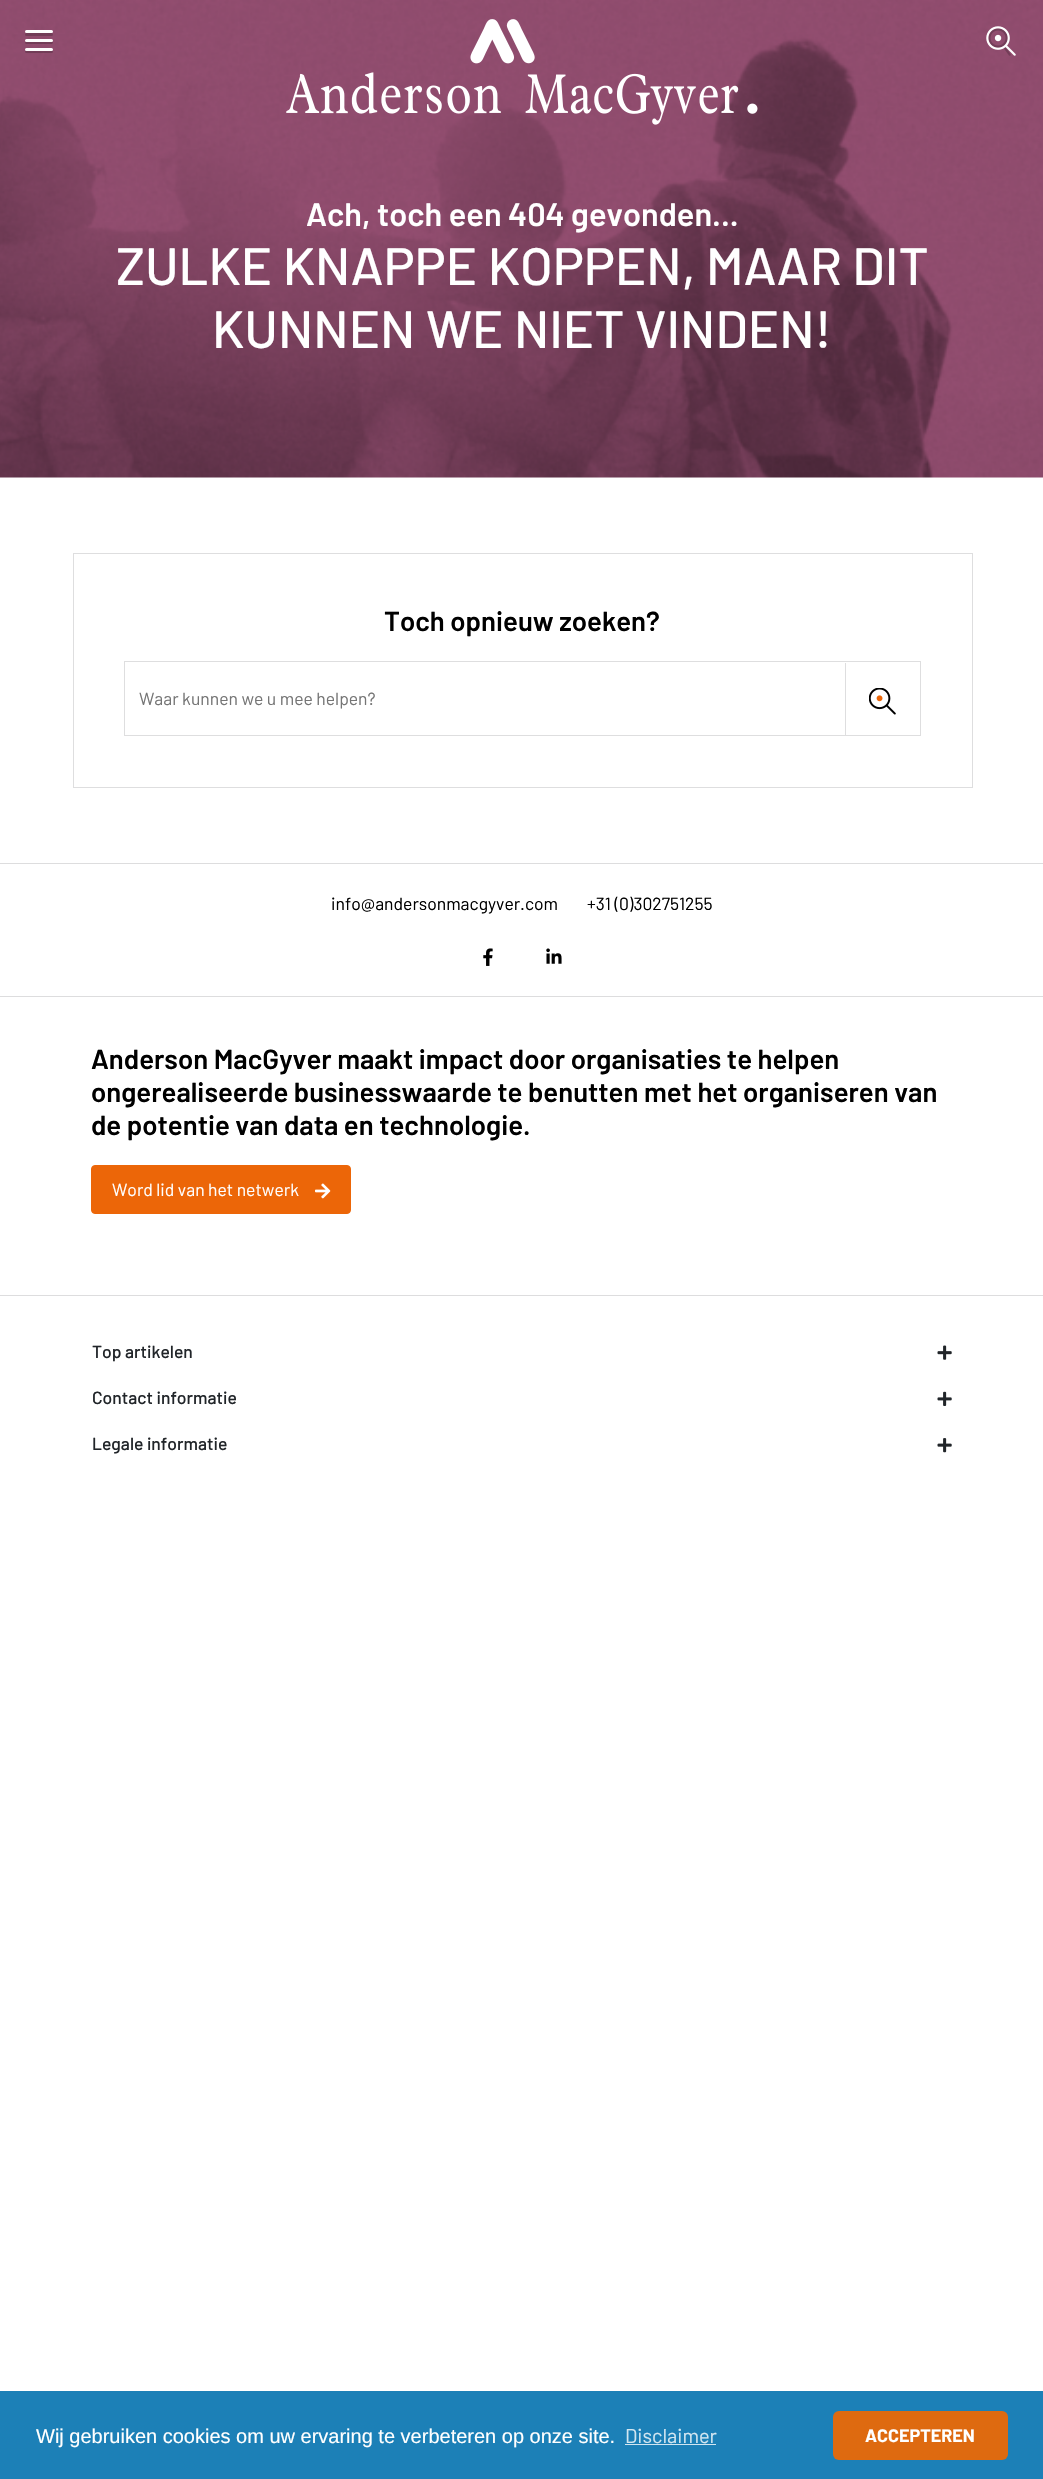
void draw(SkCanvas* c) {
SkPaint p;
p.setAntiAlias(true);
auto F=[&](const char* family, int weight, float size, bool italic = false){SkFontStyle style(weight, SkFontStyle::kNormal_Width,italic ? SkFontStyle::kItalic_Slant : SkFontStyle::kUpright_Slant);SkFont result(fontMgr->matchFamilyStyle(family, style), size);result.setSubpixel(true);return result;};
auto T=[&](const char* s, float x, float y, const SkFont& font){c->drawString(s, x, y, font, p);};
auto R=[&](float x, float y, float w, float h){c->drawRect(SkRect::MakeXYWH(x, y, w, h), p);};
auto Q=[&](float x, float y, float w, float h, float radius){c->drawRoundRect(SkRect::MakeXYWH(x, y, w, h), radius, radius, p);};
auto I=[&](const char* path, float x, float y, float w, float h){auto image = SkImages::DeferredFromEncodedData(SkData::MakeFromFileName(path));c->drawImageRect(image, SkRect::MakeXYWH(x, y, w, h), SkSamplingOptions());};
auto P=[&](const char* data, bool evenOdd = false){SkPath result = *SkParsePath::FromSVGString(data);if (evenOdd) result.setFillType(SkPathFillType::kEvenOdd);return result;};
c->clear(0xffffffff);
I("1.png",0,0,1043,478);
p.setColor(0x33000000);
Q(25,33,28,3,1.5);
p.setColor(0xffffffff);
Q(25,30,28,3,1.5);
p.setColor(0x33000000);
c->drawPath(P("M26 41c-1.5 1-1 2.5 0 3h26l.5-.5c1-1 .5-2-.5-2.5z"),p);
p.setColor(0xffffffff);
Q(25,39,28,3,1.5);
p.setColor(0x33000000);
Q(25,50,28,3,1.5);
p.setColor(0xffffffff);
Q(25,48,28,3,1.5);
I("2.png",286,19,472,106);
I("3.png",986,26,30,30);
auto f1 = F("Barlow",600,32.5);
T("Ach, toch een 404 gevonden...",306,226,f1);
auto f2 = F("Barlow",500,52.5);
T("ZULKE KNAPPE KOPPEN, MAAR DIT",116,285,f2);
T("KUNNEN WE NIET VINDEN!",212,348,f2);
p.setStroke(true);
p.setStrokeWidth(1);
p.setColor(0xffdededf);
c->drawRect(SkRect::MakeXYWH(73.5,553.5,899,234),p);
auto f3 = F("Barlow",600,27.5);
p.setStroke(false);
p.setColor(0xff000000);
T("Toch opnieuw zoeken?",384,631,f3);
p.setStroke(true);
p.setColor(0xffdededf);
c->drawRect(SkRect::MakeXYWH(124.5,661.5,796,74),p);
auto f4 = F("Barlow",400,17.5);
p.setStroke(false);
p.setColor(0xff757575);
T("Waar kunnen we u mee helpen?",139,705,f4);
p.setColor(0xffdededf);
R(845,663,1,72);
I("4.png",869,688,27,27);
p.setColor(0xffddddde);
R(0,996,1043,1);
R(0,863,1043,1);
p.setColor(0xff000000);
T("info@andersonmacgyver.com",331,910,f4);
T("+31 (0)302751255",587,910,f4);
I("5.png",483,948,10,18);
I("6.png",546,948,16,16);
T("Anderson MacGyver maakt impact door organisaties te helpen",91,1069,f3);
T("ongerealiseerde businesswaarde te benutten met het organiseren van",91,1102,f3);
T("de potentie van data en technologie.",91,1135,f3);
p.setColor(0xffec6608);
c->drawRoundRect(SkRect::MakeXYWH(91.5,1165.5,259,48),3.5,3.5,p);
p.setStroke(true);
c->drawRoundRect(SkRect::MakeXYWH(91.5,1165.5,259,48),3.5,3.5,p);
p.setStroke(false);
p.setColor(0xffffffff);
T("Word lid van het netwerk",112,1196,f4);
I("7.png",315,1183,16,16);
p.setColor(0xffddddde);
R(0,1295,1043,1);
auto f5 = F("Barlow",500,17.5);
p.setColor(0xff212529);
T("Top artikelen",92,1358,f5);
I("8.png",937,1345,15,15);
T("Contact informatie",92,1404,f5);
I("9.png",937,1391,15,15);
T("Legale informatie",92,1450,f5);
I("10.png",937,1438,15,15);
p.setColor(0xff1c80b7);
R(0,2391,1043,88);
auto f6 = F("Liberation Sans",400,20);
p.setColor(0xffffffff);
T("Wij gebruiken cookies om uw ervaring te verbeteren op onze site.",36,2443,f6);
auto f7 = F("Barlow",400,20);
p.setColor(0xffd2e6f1);
T("Disclaimer",625,2443,f7);
R(625,2444,91,1);
p.setColor(0xffde6a10);
Q(833,2411,175,49,6);
auto f8 = F("Barlow",700,18);
p.setColor(0xffffffff);
T("ACCEPTEREN",865,2442,f8);
}
